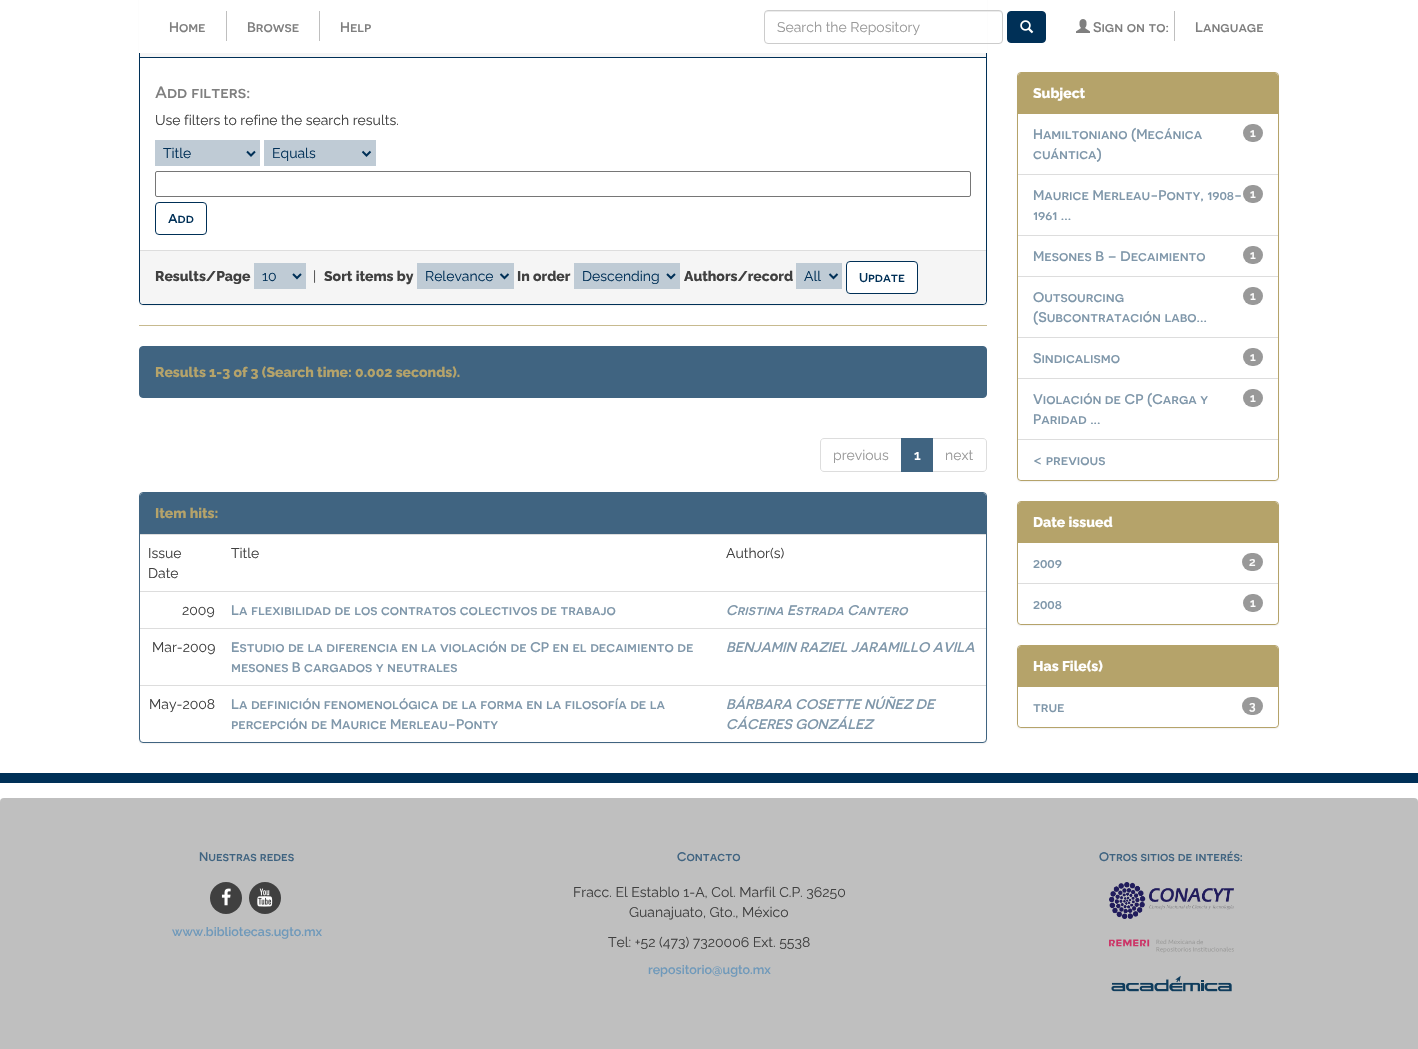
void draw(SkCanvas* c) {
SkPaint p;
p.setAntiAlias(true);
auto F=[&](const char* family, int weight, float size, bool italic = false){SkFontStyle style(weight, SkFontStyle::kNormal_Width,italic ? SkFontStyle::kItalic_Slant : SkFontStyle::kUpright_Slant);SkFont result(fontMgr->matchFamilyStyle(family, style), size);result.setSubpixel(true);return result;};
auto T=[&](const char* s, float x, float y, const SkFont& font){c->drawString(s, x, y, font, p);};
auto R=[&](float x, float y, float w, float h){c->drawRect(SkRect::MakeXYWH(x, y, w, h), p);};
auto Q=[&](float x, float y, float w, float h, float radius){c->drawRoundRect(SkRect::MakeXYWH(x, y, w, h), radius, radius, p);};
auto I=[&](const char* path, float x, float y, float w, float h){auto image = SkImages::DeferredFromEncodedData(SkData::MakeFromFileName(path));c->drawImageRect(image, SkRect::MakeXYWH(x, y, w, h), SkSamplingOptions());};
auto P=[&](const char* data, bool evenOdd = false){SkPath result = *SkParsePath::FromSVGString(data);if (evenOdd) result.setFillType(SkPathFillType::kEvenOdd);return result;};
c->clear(0xffffffff);
p.setColor(0x0d000000);
p.setMaskFilter(SkMaskFilter::MakeBlur(kNormal_SkBlurStyle, .5));
c->drawRoundRect(SkRect::MakeXYWH(139,-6,848,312),4,4,p);
p.setMaskFilter(nullptr);
p.setColor(0xffffffff);
c->drawRoundRect(SkRect::MakeXYWH(139.5,-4.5,847,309),3.5,3.5,p);
p.setStroke(true);
p.setStrokeWidth(1);
p.setColor(0xff003057);
c->drawRoundRect(SkRect::MakeXYWH(139.5,-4.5,847,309),3.5,3.5,p);
p.setStroke(false);
p.setColor(0xffffffff);
R(139,0,848,53);
auto f1 = F("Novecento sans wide",600,14);
p.setColor(0xff7f7f7f);
T("Home",169,32,f1);
p.setColor(0xffbfbfbf);
R(226,11,1,30);
p.setColor(0xff7f7f7f);
T("Browse",247,32,f1);
p.setColor(0xffbfbfbf);
R(319,11,1,30);
p.setColor(0xff7f7f7f);
T("Help",340,32,f1);
p.setColor(0xffececec);
c->drawPath(P("M768 12h232l2 1v2c0-2-1-4-3-4h-231c-2 0-3 2-3 4c0-2 1-3 3-3z"),p);
p.setStroke(true);
p.setColor(0xffcccccc);
c->drawRoundRect(SkRect::MakeXYWH(764.5,10.5,238,33),3.5,3.5,p);
auto f2 = F("Raleway",400,14);
p.setStroke(false);
p.setColor(0xff999999);
T("Search the Repository",777,32,f2);
p.setColor(0xff003057);
c->drawRoundRect(SkRect::MakeXYWH(1007.5,11.5,38,31),3.5,3.5,p);
p.setStroke(true);
c->drawRoundRect(SkRect::MakeXYWH(1007.5,11.5,38,31),3.5,3.5,p);
I("1.png",1020,20,14,14);
I("2.png",1076,19,14,14);
p.setStroke(false);
p.setColor(0xff7f7f7f);
T("Sign on to:",1093,32,f1);
p.setColor(0xffbfbfbf);
R(1174,11,1,30);
p.setColor(0xff7f7f7f);
T("Language",1195,32,f1);
p.setColor(0xfff5f5f5);
R(140,53,846,4);
p.setColor(0xff003057);
R(140,57,846,1);
auto f3 = F("Novecento sans wide",600,16.25);
p.setColor(0xff7f7f7f);
T("Add filters:",155,98,f3);
p.setColor(0xff404040);
T("Use filters to refine the search results.",155,125,f2);
p.setColor(0xffbfcbd5);
R(155,140,105,26);
p.setStroke(true);
p.setStrokeWidth(2);
p.setColor(0xff003057);
c->drawPath(P("M247 151.5l4 4l4-4"),p);
p.setStroke(false);
T("Title",163,158,f2);
p.setColor(0xffbfcbd5);
R(264,140,112,26);
p.setStroke(true);
p.setColor(0xff003057);
c->drawPath(P("M362.5 151.5l4 4l4-4"),p);
p.setStroke(false);
T("Equals",272,158,f2);
p.setStroke(true);
p.setStrokeWidth(1);
p.setColor(0xff767676);
c->drawRoundRect(SkRect::MakeXYWH(155.5,171.5,815,25),1.5,1.5,p);
p.setColor(0xff003057);
c->drawRoundRect(SkRect::MakeXYWH(155.5,202.5,51,32),3.5,3.5,p);
auto f4 = F("Novecento sans wide",600,13);
p.setStroke(false);
T("Add",168,223,f4);
p.setColor(0xfff5f5f5);
c->drawPath(P("M140 250h846v51c0 1.5-1.5 3-3 3h-840c-1.5 0-3-1.5-3-3z"),p);
p.setColor(0xffdddddd);
R(140,250,846,1);
auto f5 = F("Raleway",800,14);
p.setColor(0xff404040);
T("Results/Page",155,281,f5);
p.setColor(0xffbfcbd5);
R(254,263,52,26);
p.setStroke(true);
p.setStrokeWidth(2);
p.setColor(0xff003057);
c->drawPath(P("M293 274l4 4l4-4"),p);
p.setStroke(false);
T("10",262,281,f2);
p.setColor(0xff404040);
T("|",313,281,f2);
T("Sort items by",324,281,f5);
p.setColor(0xffbfcbd5);
R(417,263,97,26);
p.setStroke(true);
p.setColor(0xff003057);
c->drawPath(P("M500.5 274l4 4l4-4"),p);
p.setStroke(false);
T("Relevance",425,281,f2);
p.setColor(0xff404040);
T("In order",517,281,f5);
p.setColor(0xffbfcbd5);
R(574,263,106,26);
p.setStroke(true);
p.setColor(0xff003057);
c->drawPath(P("M667 274l4 4l4-4"),p);
p.setStroke(false);
T("Descending",582,281,f2);
p.setColor(0xff404040);
T("Authors/record",684,281,f5);
p.setColor(0xffbfcbd5);
R(796,263,46,26);
p.setStroke(true);
p.setColor(0xff003057);
c->drawPath(P("M829.5 274l4 4l4-4"),p);
p.setStroke(false);
T("All",804,281,f2);
p.setColor(0xffffffff);
c->drawRoundRect(SkRect::MakeXYWH(846.5,261.5,71,32),3.5,3.5,p);
p.setStroke(true);
p.setStrokeWidth(1);
p.setColor(0xff003057);
c->drawRoundRect(SkRect::MakeXYWH(846.5,261.5,71,32),3.5,3.5,p);
p.setStroke(false);
T("Update",859,282,f4);
p.setColor(0xffc7ba8f);
R(139,325,848,1);
p.setColor(0xff406481);
c->drawRoundRect(SkRect::MakeXYWH(139.5,346.5,847,51),3.5,3.5,p);
p.setStroke(true);
c->drawRoundRect(SkRect::MakeXYWH(139.5,346.5,847,51),3.5,3.5,p);
p.setStroke(false);
p.setColor(0xffb5a36a);
T("Results 1-3 of 3 (Search time: 0.002 seconds).",155,377,f5);
p.setStroke(true);
p.setColor(0xffdddddd);
c->drawPath(P("M824 438.5h77.5v33h-77.5c-2 0-3.5-1.5-3.5-3.5v-26c0-2 1.5-3.5 3.5-3.5z"),p);
p.setStroke(false);
p.setColor(0xff999999);
T("previous",833,460,f2);
p.setStroke(true);
p.setColor(0xffdddddd);
c->drawPath(P("M932.5 438.5h50.5c2 0 3.5 1.5 3.5 3.5v26c0 2-1.5 3.5-3.5 3.5h-50.5z"),p);
p.setStroke(false);
p.setColor(0xff406481);
R(901,438,32,34);
auto f6 = F("Raleway",600,14);
p.setColor(0xffffffff);
T("1",914,460,f6);
p.setColor(0xff999999);
T("next",945,460,f2);
p.setColor(0x0d000000);
p.setMaskFilter(SkMaskFilter::MakeBlur(kNormal_SkBlurStyle, .5));
c->drawRoundRect(SkRect::MakeXYWH(139,493,848,251),4,4,p);
p.setMaskFilter(nullptr);
p.setColor(0xffffffff);
c->drawRoundRect(SkRect::MakeXYWH(139.5,492.5,847,250),3.5,3.5,p);
p.setStroke(true);
p.setColor(0xff406481);
c->drawRoundRect(SkRect::MakeXYWH(139.5,492.5,847,250),3.5,3.5,p);
p.setStroke(false);
c->drawPath(P("M143 493h840c1.5 0 3 1.5 3 3v38h-846v-38c0-1.5 1.5-3 3-3z"),p);
p.setColor(0xffb5a36a);
T("Item hits:",155,518,f5);
p.setColor(0xff404040);
T("Issue",148,558,f2);
T("Date",148,578,f2);
T("Title",231,558,f2);
p.setColor(0xffdddddd);
R(140,534,846,1);
p.setColor(0xff404040);
T("Author(s)",726,558,f2);
T("2009",182,615,f2);
p.setColor(0xff7f97aa);
T("La flexibilidad de los contratos colectivos de trabajo",231,615,f1);
p.setColor(0xffdddddd);
R(140,591,846,1);
auto f7 = F("Novecento sans wide",600,14,true);
p.setColor(0xff7f97aa);
T("Cristina Estrada Cantero",726,615,f7);
p.setColor(0xff404040);
T("Mar-2009",152,652,f2);
p.setColor(0xff7f97aa);
T("Estudio de la diferencia en la violación de CP en el decaimiento de",231,652,f1);
T("mesones B cargados y neutrales",231,672,f1);
p.setColor(0xffdddddd);
R(140,628,846,1);
p.setColor(0xff7f97aa);
T("BENJAMIN RAZIEL JARAMILLO AVILA",726,652,f7);
p.setColor(0xff404040);
T("May-2008",149,709,f2);
p.setColor(0xff7f97aa);
T("La definición fenomenológica de la forma en la filosofía de la",231,709,f1);
T("percepción de Maurice Merleau-Ponty",231,729,f1);
p.setColor(0xffdddddd);
R(140,685,846,1);
p.setColor(0xff7f97aa);
T("BÁRBARA COSETTE NÚÑEZ DE",726,709,f7);
T("CÁCERES GONZÁLEZ",726,729,f7);
p.setColor(0x0d000000);
p.setMaskFilter(SkMaskFilter::MakeBlur(kNormal_SkBlurStyle, .5));
c->drawRoundRect(SkRect::MakeXYWH(1017,73,262,409),4,4,p);
p.setMaskFilter(nullptr);
p.setColor(0xffffffff);
c->drawRoundRect(SkRect::MakeXYWH(1017.5,72.5,261,408),3.5,3.5,p);
p.setStroke(true);
p.setColor(0xffb5a36a);
c->drawRoundRect(SkRect::MakeXYWH(1017.5,72.5,261,408),3.5,3.5,p);
p.setStroke(false);
c->drawPath(P("M1021 73h254c1.5 0 3 1.5 3 3v38h-260v-38c0-1.5 1.5-3 3-3z"),p);
p.setColor(0xffffffff);
T("Subject",1033,98,f5);
p.setColor(0xffdddddd);
R(1018,174,260,1);
p.setColor(0xff7f97aa);
T("Hamiltoniano (Mecánica",1033,139,f1);
p.setColor(0xff999999);
Q(1243,124,20,18,9);
auto f8 = F("Raleway",600,12);
p.setColor(0xffffffff);
T("1",1250,137,f8);
p.setColor(0xff7f97aa);
T("cuántica)",1033,159,f1);
p.setColor(0xffdddddd);
R(1018,235,260,1);
p.setColor(0xff7f97aa);
T("Maurice Merleau-Ponty, 1908-",1033,200,f1);
p.setColor(0xff999999);
Q(1243,185,20,18,9);
p.setColor(0xffffffff);
T("1",1250,198,f8);
p.setColor(0xff7f97aa);
T("1961 ...",1033,220,f1);
p.setColor(0xffdddddd);
R(1018,276,260,1);
p.setColor(0xff7f97aa);
T("Mesones B – Decaimiento",1033,261,f1);
p.setColor(0xff999999);
Q(1243,246,20,18,9);
p.setColor(0xffffffff);
T("1",1250,259,f8);
p.setColor(0xffdddddd);
R(1018,337,260,1);
p.setColor(0xff7f97aa);
T("Outsourcing",1033,302,f1);
p.setColor(0xff999999);
Q(1243,287,20,18,9);
p.setColor(0xffffffff);
T("1",1250,300,f8);
p.setColor(0xff7f97aa);
T("(Subcontratación labo...",1033,322,f1);
p.setColor(0xffdddddd);
R(1018,378,260,1);
p.setColor(0xff7f97aa);
T("Sindicalismo",1033,363,f1);
p.setColor(0xff999999);
Q(1243,348,20,18,9);
p.setColor(0xffffffff);
T("1",1250,361,f8);
p.setColor(0xff7f97aa);
T("Violación de CP (Carga y",1033,404,f1);
p.setColor(0xff999999);
Q(1243,389,20,18,9);
p.setColor(0xffffffff);
T("1",1250,402,f8);
p.setColor(0xff7f97aa);
T("Paridad ...",1033,424,f1);
p.setColor(0xffffffff);
c->drawPath(P("M1018 439h260v37c0 2-2 4-4 4h-252c-2 0-4-2-4-4z"),p);
p.setColor(0xffdddddd);
R(1018,439,260,1);
p.setColor(0xff7f97aa);
T("< previous",1033,465,f1);
p.setColor(0x0d000000);
p.setMaskFilter(SkMaskFilter::MakeBlur(kNormal_SkBlurStyle, .5));
c->drawRoundRect(SkRect::MakeXYWH(1017,502,262,124),4,4,p);
p.setMaskFilter(nullptr);
p.setColor(0xffffffff);
c->drawRoundRect(SkRect::MakeXYWH(1017.5,501.5,261,123),3.5,3.5,p);
p.setStroke(true);
p.setColor(0xffb5a36a);
c->drawRoundRect(SkRect::MakeXYWH(1017.5,501.5,261,123),3.5,3.5,p);
p.setStroke(false);
c->drawPath(P("M1021 502h254c1.5 0 3 1.5 3 3v38h-260v-38c0-1.5 1.5-3 3-3z"),p);
p.setColor(0xffffffff);
T("Date issued",1033,527,f5);
p.setColor(0xff7f97aa);
T("2009",1033,568,f1);
p.setColor(0xff999999);
Q(1242,553,21,18,9);
p.setColor(0xffffffff);
T("2",1249,566,f8);
c->drawPath(P("M1018 583h260v37c0 2-2 4-4 4h-252c-2 0-4-2-4-4z"),p);
p.setColor(0xffdddddd);
R(1018,583,260,1);
p.setColor(0xff7f97aa);
T("2008",1033,609,f1);
p.setColor(0xff999999);
Q(1243,594,20,18,9);
p.setColor(0xffffffff);
T("1",1250,607,f8);
p.setColor(0x0d000000);
p.setMaskFilter(SkMaskFilter::MakeBlur(kNormal_SkBlurStyle, .5));
c->drawRoundRect(SkRect::MakeXYWH(1017,646,262,83),4,4,p);
p.setMaskFilter(nullptr);
p.setColor(0xffffffff);
c->drawRoundRect(SkRect::MakeXYWH(1017.5,645.5,261,82),3.5,3.5,p);
p.setStroke(true);
p.setColor(0xffb5a36a);
c->drawRoundRect(SkRect::MakeXYWH(1017.5,645.5,261,82),3.5,3.5,p);
p.setStroke(false);
c->drawPath(P("M1021 646h254c1.5 0 3 1.5 3 3v38h-260v-38c0-1.5 1.5-3 3-3z"),p);
p.setColor(0xffffffff);
T("Has File(s)",1033,671,f5);
c->drawPath(P("M1018 687h260v36c0 2-2 4-4 4h-252c-2 0-4-2-4-4z"),p);
p.setColor(0xff7f97aa);
T("true",1033,712,f1);
p.setColor(0xff999999);
Q(1242,697,21,18,9);
p.setColor(0xffffffff);
T("3",1249,710,f8);
p.setColor(0xff003057);
R(0,773,1418,10);
p.setColor(0xffbfbfbf);
Q(0,798,1418,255,4);
auto f9 = F("Novecento sans wide",600,12.5);
p.setColor(0xff406481);
T("Nuestras redes",199,861,f9);
p.setColor(0xff404040);
c->drawCircle(226,898,16,p);
I("3.png",221,888,10,18);
c->drawCircle(265,898,16,p);
I("4.png",257,888,16,19);
auto f10 = F("Raleway",600,12.5);
p.setColor(0xff6f99ba);
T("www.bibliotecas.ugto.mx",172,936,f10);
p.setColor(0xff406481);
T("Contacto",677,861,f9);
p.setColor(0xff404040);
T("Fracc. El Establo 1-A, Col. Marfil C.P. 36250",573,897,f2);
T("Guanajuato, Gto., México",629,917,f2);
T("Tel: +52 (473) 7320006 Ext. 5538",608,947,f2);
p.setColor(0xff6f99ba);
T("repositorio@ugto.mx",648,974,f10);
p.setColor(0xff406481);
T("Otros sitios de interés:",1099,861,f9);
I("5.png",1109,882,125,37);
I("6.png",1109,939,125,14);
I("7.png",1111,975,121,17);
}
